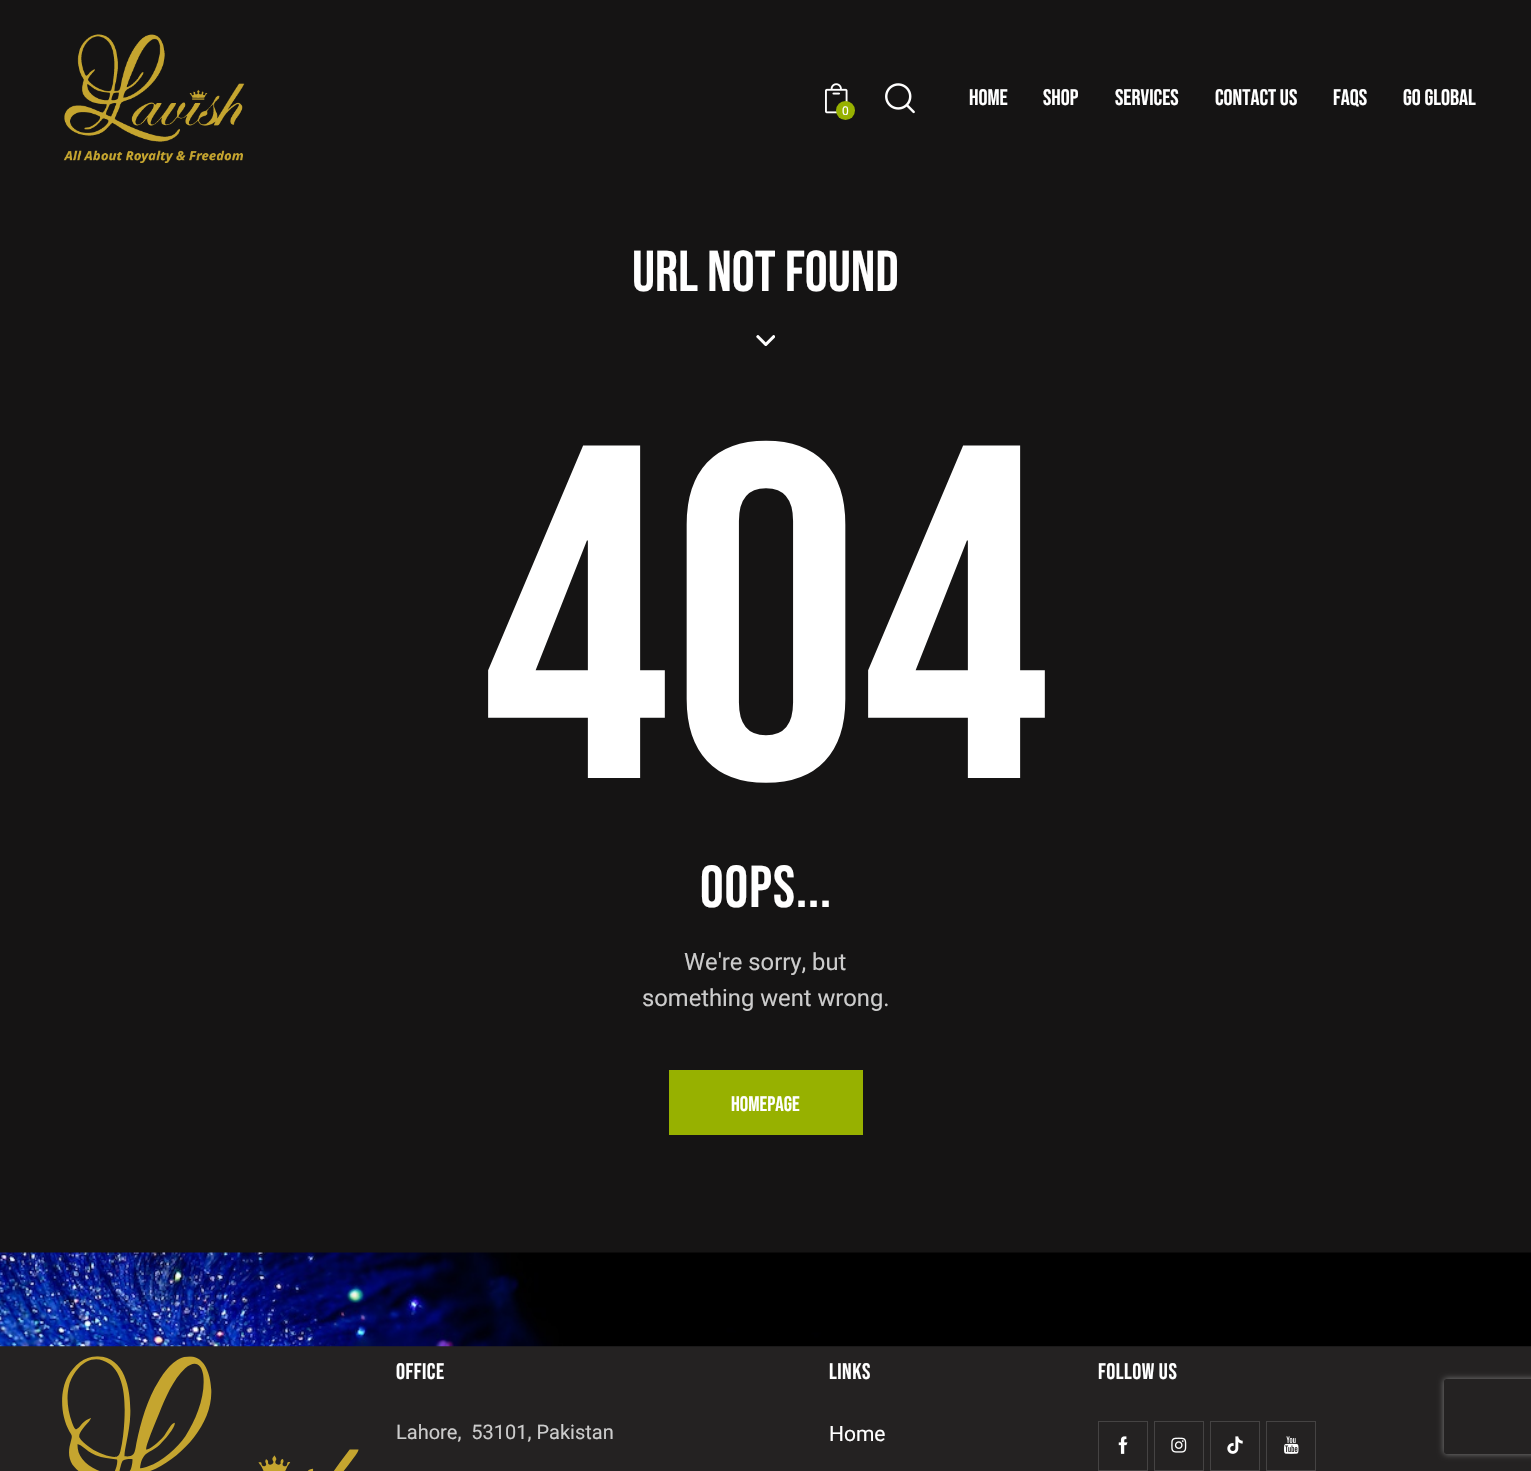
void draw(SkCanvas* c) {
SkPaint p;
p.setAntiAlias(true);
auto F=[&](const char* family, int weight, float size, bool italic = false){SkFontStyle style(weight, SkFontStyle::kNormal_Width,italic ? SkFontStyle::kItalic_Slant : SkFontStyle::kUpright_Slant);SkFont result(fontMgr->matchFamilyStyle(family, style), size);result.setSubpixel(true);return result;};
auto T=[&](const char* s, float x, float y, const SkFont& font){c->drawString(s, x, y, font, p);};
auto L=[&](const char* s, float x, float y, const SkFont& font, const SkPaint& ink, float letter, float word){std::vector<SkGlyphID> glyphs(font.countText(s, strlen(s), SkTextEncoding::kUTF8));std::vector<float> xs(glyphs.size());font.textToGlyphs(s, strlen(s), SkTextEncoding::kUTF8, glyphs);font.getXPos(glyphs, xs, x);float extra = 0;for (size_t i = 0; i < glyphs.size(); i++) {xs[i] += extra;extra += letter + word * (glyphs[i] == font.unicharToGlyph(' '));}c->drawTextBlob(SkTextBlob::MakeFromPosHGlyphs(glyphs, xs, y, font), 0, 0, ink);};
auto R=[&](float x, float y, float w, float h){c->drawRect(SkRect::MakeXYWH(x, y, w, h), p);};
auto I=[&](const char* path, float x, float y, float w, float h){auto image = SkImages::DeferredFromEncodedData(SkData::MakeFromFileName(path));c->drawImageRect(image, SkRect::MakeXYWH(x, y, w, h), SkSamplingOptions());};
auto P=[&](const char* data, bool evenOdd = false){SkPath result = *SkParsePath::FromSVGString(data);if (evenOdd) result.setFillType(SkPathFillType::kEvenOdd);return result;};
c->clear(0xff151414);
I("1.png",63,34,182,129);
I("2.png",885,83,30,31);
auto f1 = F("Bebas Neue",400,22.5);
p.setColor(0xffffffff);
T("HOME",969,105,f1);
T("SHOP",1043,105,f1);
T("SERVICES",1115,105,f1);
T("CONTACT US",1215,105,f1);
T("FAQS",1333,105,f1);
T("GO GLOBAL",1403,105,f1);
I("3.png",825,83,23,31);
p.setColor(0xff97b100);
c->drawCircle(845.5,110.5,9.5,p);
auto f2 = F("Roboto",400,12);
p.setColor(0xffffffff);
T("0",842,115,f2);
auto f3 = F("Bebas Neue",400,57.5);
T("URL NOT FOUND",632,291,f3);
I("4.png",756,335,19,11);
auto f4 = F("Bebas Neue",400,475);
T("404",481,778,f4);
auto f5 = F("Bebas Neue",400,59);
L("OOPS...",700,907,f5,p,1,0);
auto f6 = F("Roboto",400,23.75);
p.setColor(0xffcccccc);
T("We're sorry, but",684,970,f6);
T("something went wrong.",642,1006,f6);
p.setColor(0xff97b100);
R(669,1070,194,65);
auto f7 = F("Bebas Neue",400,21);
p.setColor(0xffffffff);
T("HOMEPAGE",731,1111,f7);
p.setColor(0xff242222);
R(0,1346,1531,125);
I("5.png",0,1252,1531,95);
I("6.png",62,1356,297,115);
p.setColor(0xffffffff);
L("OFFICE",396,1379,f1,p,.5,0);
auto f8 = F("Roboto",400,20);
p.setColor(0xffcccccc);
T("Lahore,  53101, Pakistan",396,1439,f8);
p.setColor(0xffffffff);
L("LINKS",829,1379,f1,p,.5,0);
auto f9 = F("Roboto",400,21);
T("Home",829,1441,f9);
L("FOLLOW US",1098,1379,f1,p,.5,0);
p.setStroke(true);
p.setStrokeWidth(1);
p.setColor(0xff454343);
c->drawRect(SkRect::MakeXYWH(1098.5,1421.5,49,49),p);
I("7.png",1118,1436,10,18);
c->drawRect(SkRect::MakeXYWH(1154.5,1421.5,49,49),p);
I("8.png",1171,1437,16,16);
c->drawRect(SkRect::MakeXYWH(1210.5,1421.5,49,49),p);
I("9.png",1227,1436,16,18);
c->drawRect(SkRect::MakeXYWH(1266.5,1421.5,49,49),p);
I("10.png",1284,1436,15,18);
c->save();
c->clipPath(P("M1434 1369h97v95h-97zm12.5 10h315c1.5 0 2.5 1 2.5 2.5v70c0 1.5-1 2.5-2.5 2.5h-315c-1.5 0-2.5-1-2.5-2.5v-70c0-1.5 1-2.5 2.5-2.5z",true),true);
p.setStroke(false);
p.setColor(0xff808080);
p.setMaskFilter(SkMaskFilter::MakeBlur(kNormal_SkBlurStyle, 3));
c->drawRoundRect(SkRect::MakeXYWH(1444,1379,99,75),2.5,2.5,p);
p.setMaskFilter(nullptr);
c->restore();
}
